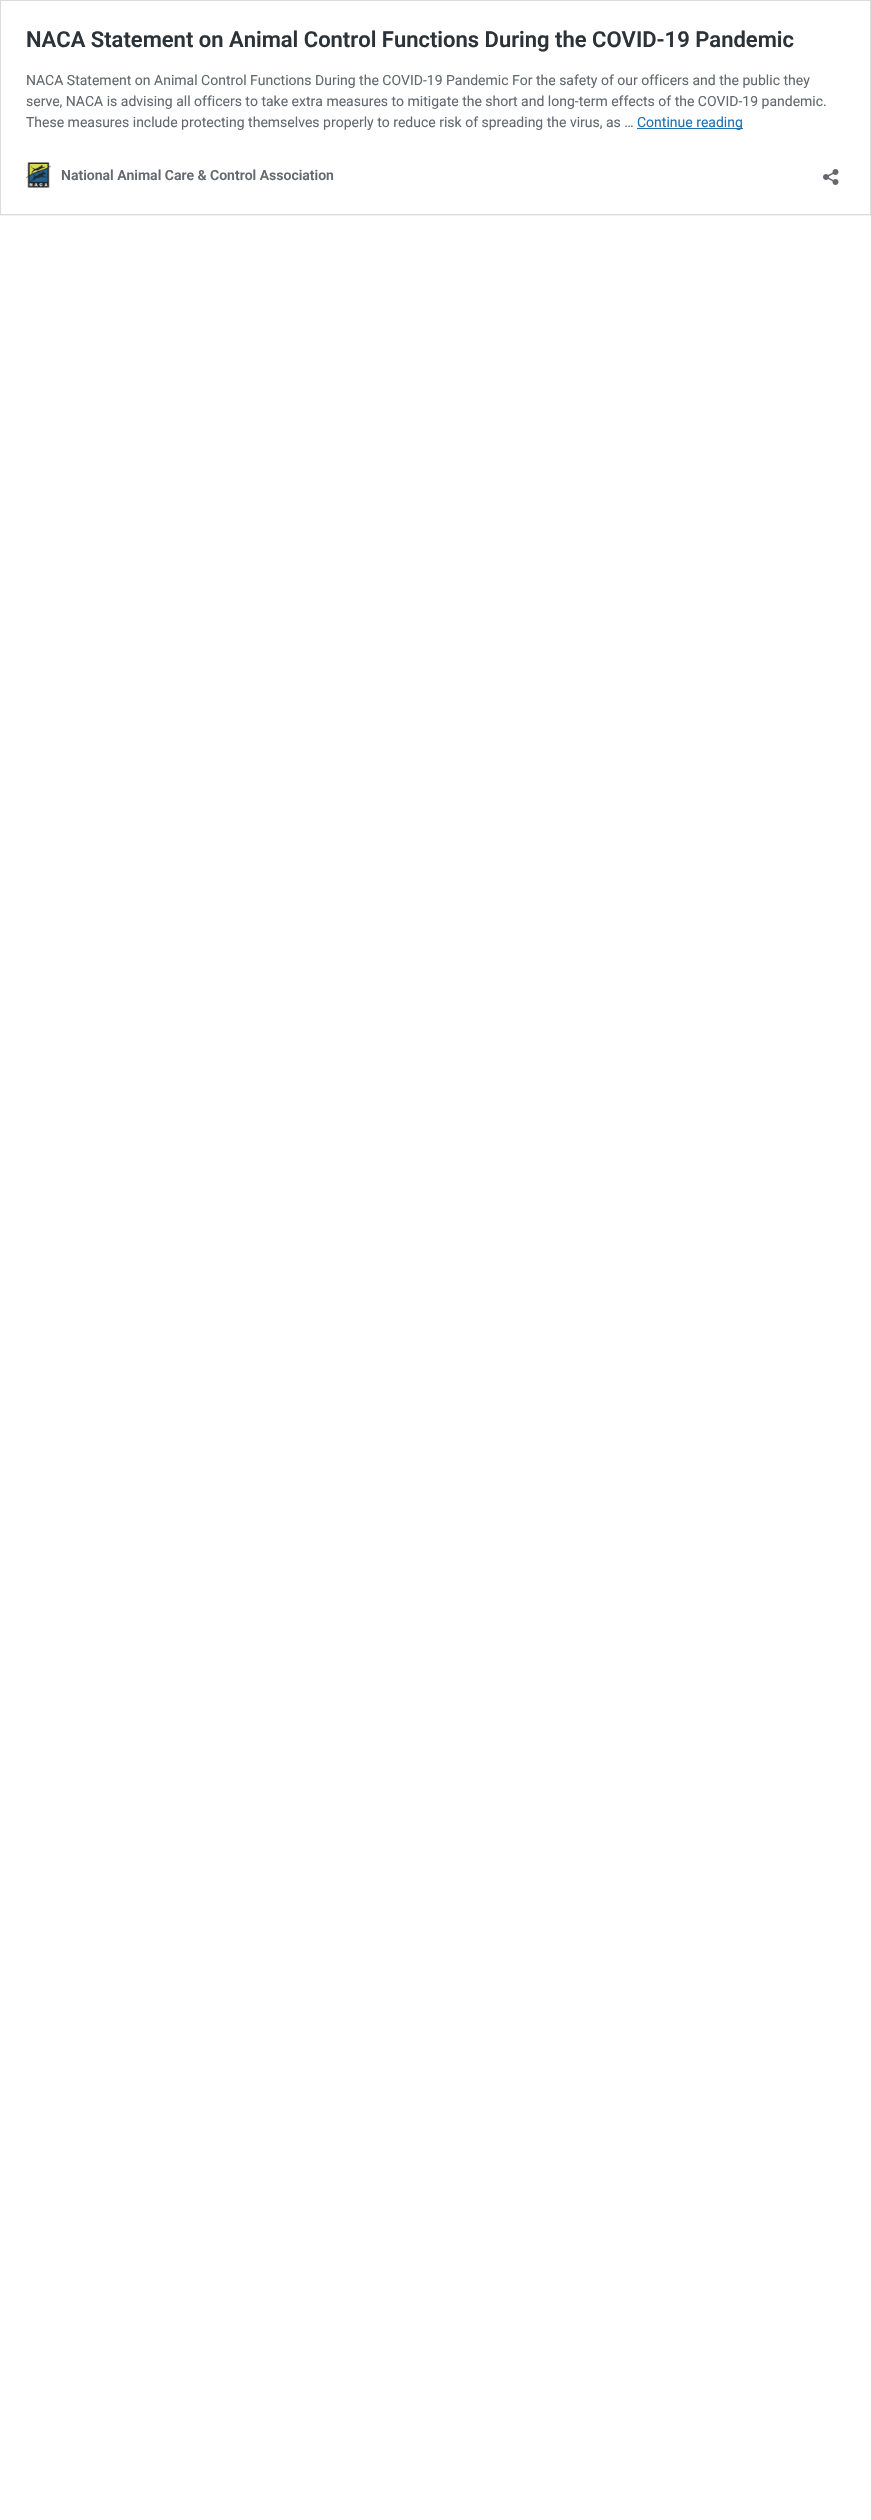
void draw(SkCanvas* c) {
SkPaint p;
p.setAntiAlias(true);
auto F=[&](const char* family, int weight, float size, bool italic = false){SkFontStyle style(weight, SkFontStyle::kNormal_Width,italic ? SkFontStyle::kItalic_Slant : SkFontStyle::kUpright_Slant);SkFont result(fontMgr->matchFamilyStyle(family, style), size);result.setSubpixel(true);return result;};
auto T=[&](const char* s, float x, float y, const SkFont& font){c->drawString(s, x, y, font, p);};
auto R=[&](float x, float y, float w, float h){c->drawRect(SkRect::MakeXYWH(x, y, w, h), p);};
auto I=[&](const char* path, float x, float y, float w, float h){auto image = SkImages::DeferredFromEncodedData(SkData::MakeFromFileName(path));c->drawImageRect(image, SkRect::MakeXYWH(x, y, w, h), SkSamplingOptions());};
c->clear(0xffffffff);
c->save();
c->clipRect(SkRect::MakeXYWH(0,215,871,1));
p.setColor(0x0d000000);
p.setMaskFilter(SkMaskFilter::MakeBlur(kNormal_SkBlurStyle, .5));
c->drawRect(SkRect::MakeXYWH(0,1,871,215),p);
p.setMaskFilter(nullptr);
c->restore();
p.setStroke(true);
p.setStrokeWidth(1);
p.setColor(0xffdcdcde);
c->drawRect(SkRect::MakeXYWH(.5,.5,870,214),p);
auto f1 = F("Roboto",600,22);
p.setStroke(false);
p.setColor(0xff2c3338);
T("NACA Statement on Animal Control Functions During the COVID-19 Pandemic",26,47,f1);
auto f2 = F("Roboto",400,14);
p.setColor(0xff646970);
T("NACA Statement on Animal Control Functions During the COVID-19 Pandemic For the safety of our officers and the public they",26,85,f2);
T("serve, NACA is advising all officers to take extra measures to mitigate the short and long-term effects of the COVID-19 pandemic.",26,106,f2);
T("These measures include protecting themselves properly to reduce risk of spreading the virus, as …",26,127,f2);
p.setColor(0xff2271b1);
R(637,128,106,1);
T("Continue reading",637,127,f2);
I("1.png",26,162,25,26);
auto f3 = F("Roboto",600,14);
p.setColor(0xff646970);
T("National Animal Care & Control Association",61,180,f3);
I("2.png",823,169,16,16);
}
